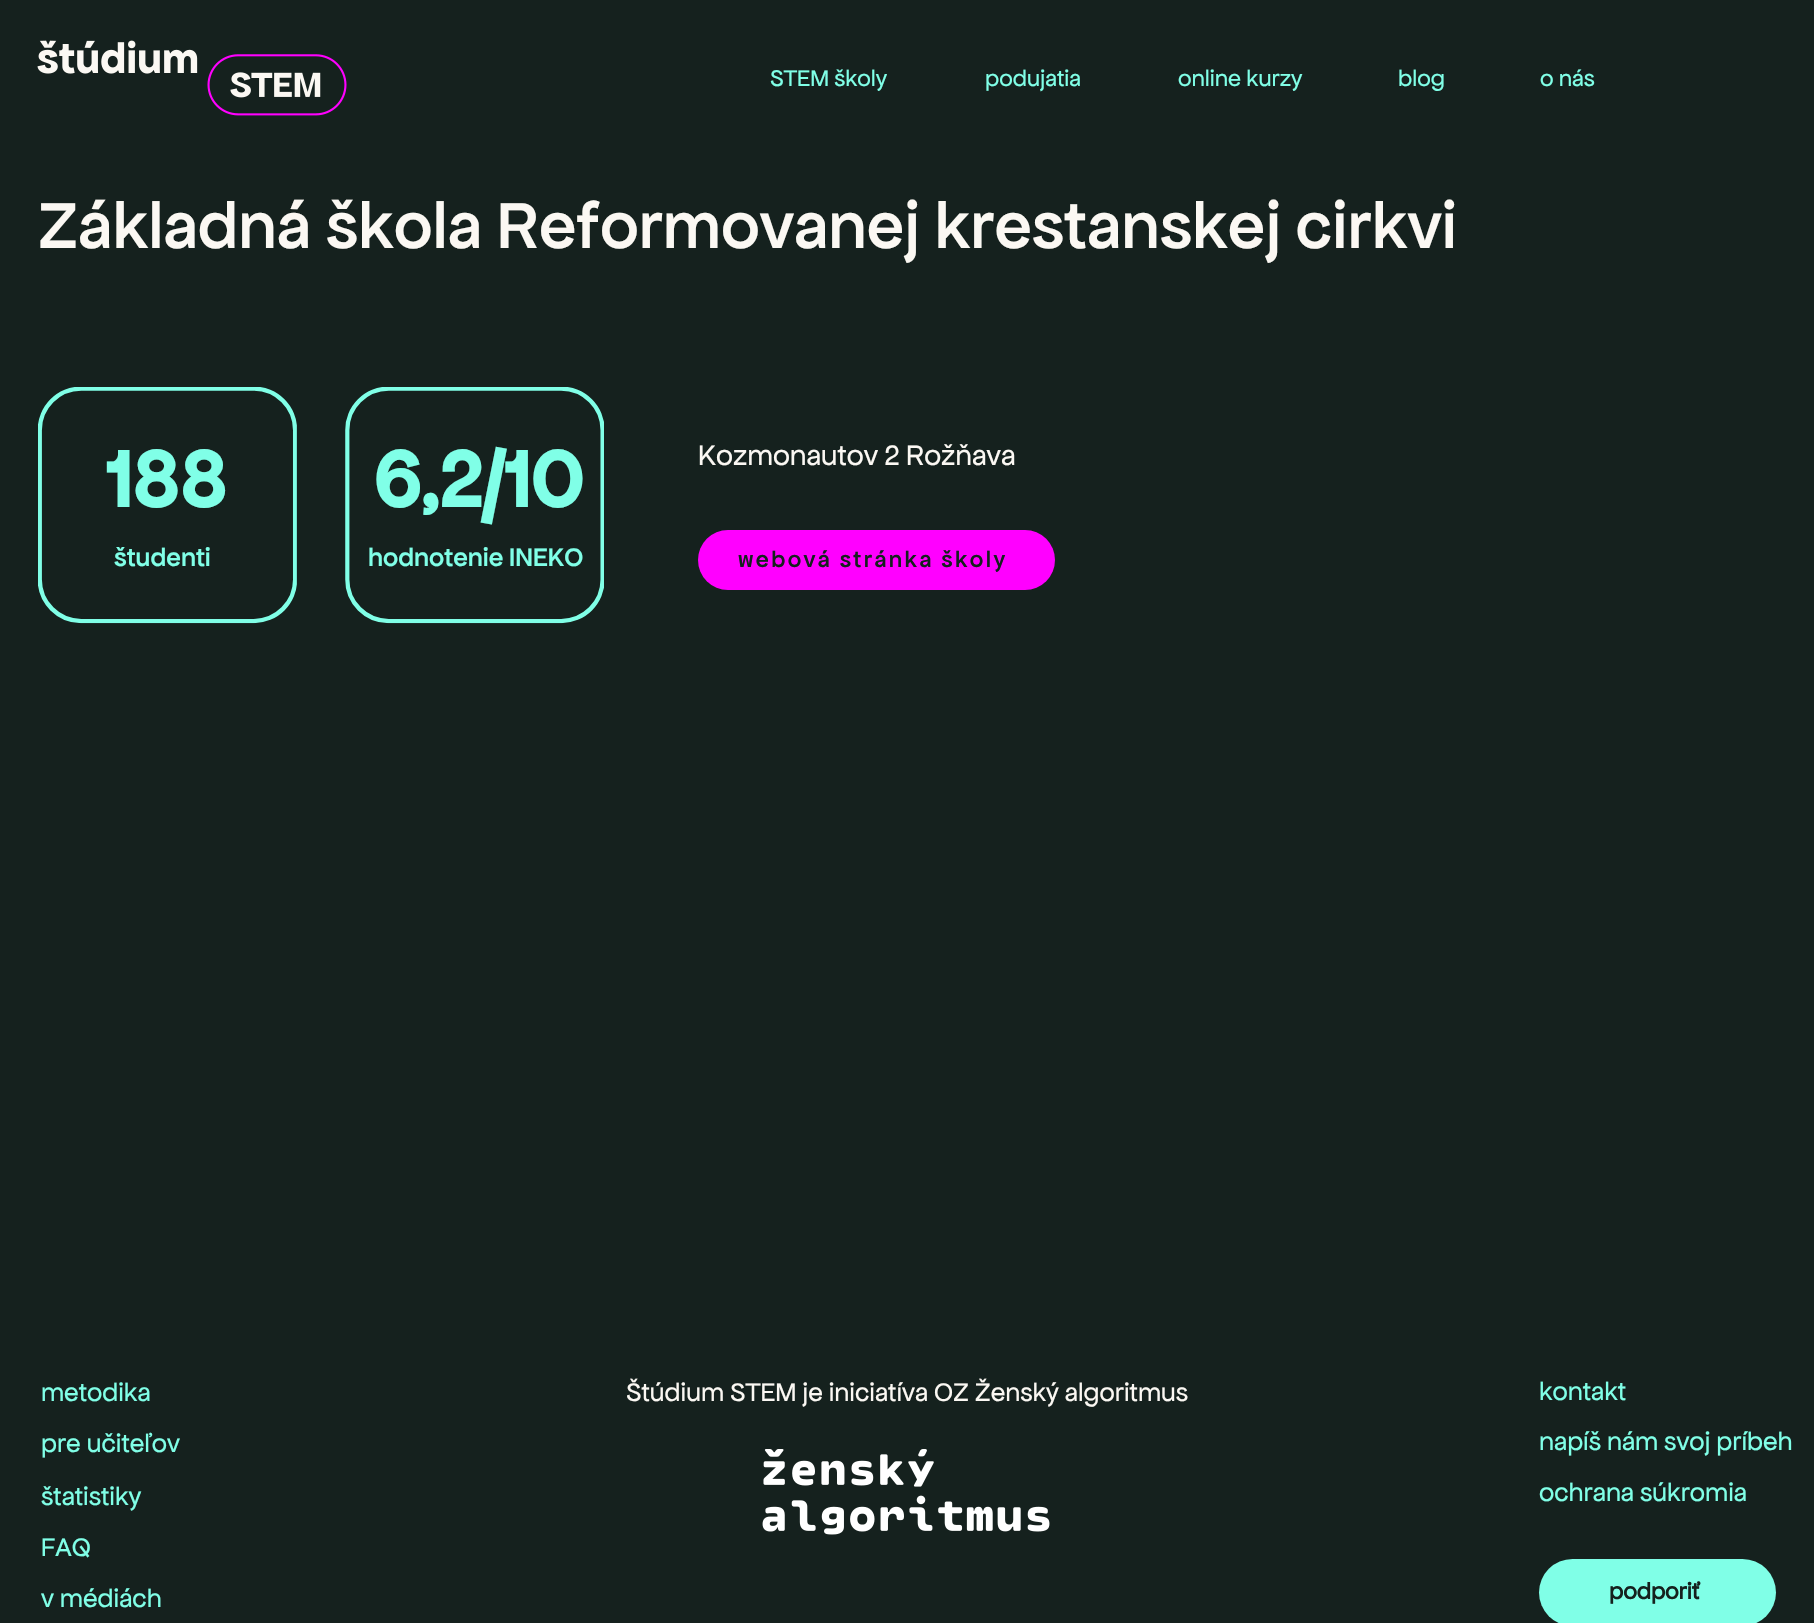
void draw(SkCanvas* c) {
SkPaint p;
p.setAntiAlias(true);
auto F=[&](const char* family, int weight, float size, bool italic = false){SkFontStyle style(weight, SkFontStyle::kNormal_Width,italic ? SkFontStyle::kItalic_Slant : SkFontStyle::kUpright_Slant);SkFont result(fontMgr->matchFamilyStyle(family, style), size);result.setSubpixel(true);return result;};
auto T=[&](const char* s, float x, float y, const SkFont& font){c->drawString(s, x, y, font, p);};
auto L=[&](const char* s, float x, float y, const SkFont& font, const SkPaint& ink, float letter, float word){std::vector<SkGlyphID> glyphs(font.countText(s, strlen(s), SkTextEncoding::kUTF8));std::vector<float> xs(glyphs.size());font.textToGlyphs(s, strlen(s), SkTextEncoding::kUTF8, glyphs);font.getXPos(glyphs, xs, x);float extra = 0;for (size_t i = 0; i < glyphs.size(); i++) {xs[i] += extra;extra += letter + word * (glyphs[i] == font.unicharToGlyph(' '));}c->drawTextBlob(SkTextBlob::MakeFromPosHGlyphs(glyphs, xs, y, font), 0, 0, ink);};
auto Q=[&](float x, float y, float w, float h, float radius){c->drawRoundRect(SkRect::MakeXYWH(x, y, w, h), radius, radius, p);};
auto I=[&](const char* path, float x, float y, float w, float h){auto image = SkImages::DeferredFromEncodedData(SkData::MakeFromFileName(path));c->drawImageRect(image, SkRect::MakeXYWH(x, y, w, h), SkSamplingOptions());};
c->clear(0xff15211e);
I("1.png",37,40,310,76);
auto f1 = F("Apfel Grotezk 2",400,24);
p.setColor(0xff80ffe7);
T("STEM školy",770,86,f1);
T("podujatia",985,86,f1);
T("online kurzy",1178,86,f1);
T("blog",1398,86,f1);
T("o nás",1540,86,f1);
auto f2 = F("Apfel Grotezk",500,69);
p.setColor(0xfffbf8f3);
T("Základná škola Reformovanej krestanskej cirkvi",38,248,f2);
I("2.png",38,387,259,237);
auto f3 = F("Apfel Grotezk",700,84);
p.setColor(0xff80ffe7);
T("188",106,507,f3);
auto f4 = F("Apfel Grotezk",500,27);
T("študenti",114,566,f4);
T("6,2/10",373,507,f3);
I("3.png",345,387,259,237);
T("hodnotenie INEKO",368,566,f4);
auto f5 = F("Apfel Grotezk",400,30);
p.setColor(0xfffbf8f3);
T("Kozmonautov 2 Rožňava",698,465,f5);
p.setColor(0xffff00ff);
Q(698,530,357,60,30);
auto f6 = F("Apfel Grotezk",500,24);
p.setColor(0xff15211e);
L("webová stránka školy",738,567,f6,p,2.4,0);
auto f7 = F("Apfel Grotezk 2",400,27);
p.setColor(0xff80ffe7);
T("metodika",41,1401,f7);
T("pre učiteľov",41,1452,f7);
T("štatistiky",41,1505,f7);
T("FAQ",41,1556,f7);
T("v médiách",41,1607,f7);
p.setColor(0xfffbf8f3);
T("Štúdium STEM je iniciatíva OZ Ženský algoritmus",626,1401,f7);
I("4.png",762,1449,288,86);
p.setColor(0xff80ffe7);
T("kontakt",1539,1400,f7);
T("napíš nám svoj príbeh",1539,1450,f7);
T("ochrana súkromia",1539,1501,f7);
Q(1539,1559,237,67,33.5);
auto f8 = F("Apfel Grotezk 2",700,24);
p.setColor(0xff15211e);
T("podporiť",1609,1599,f8);
}
